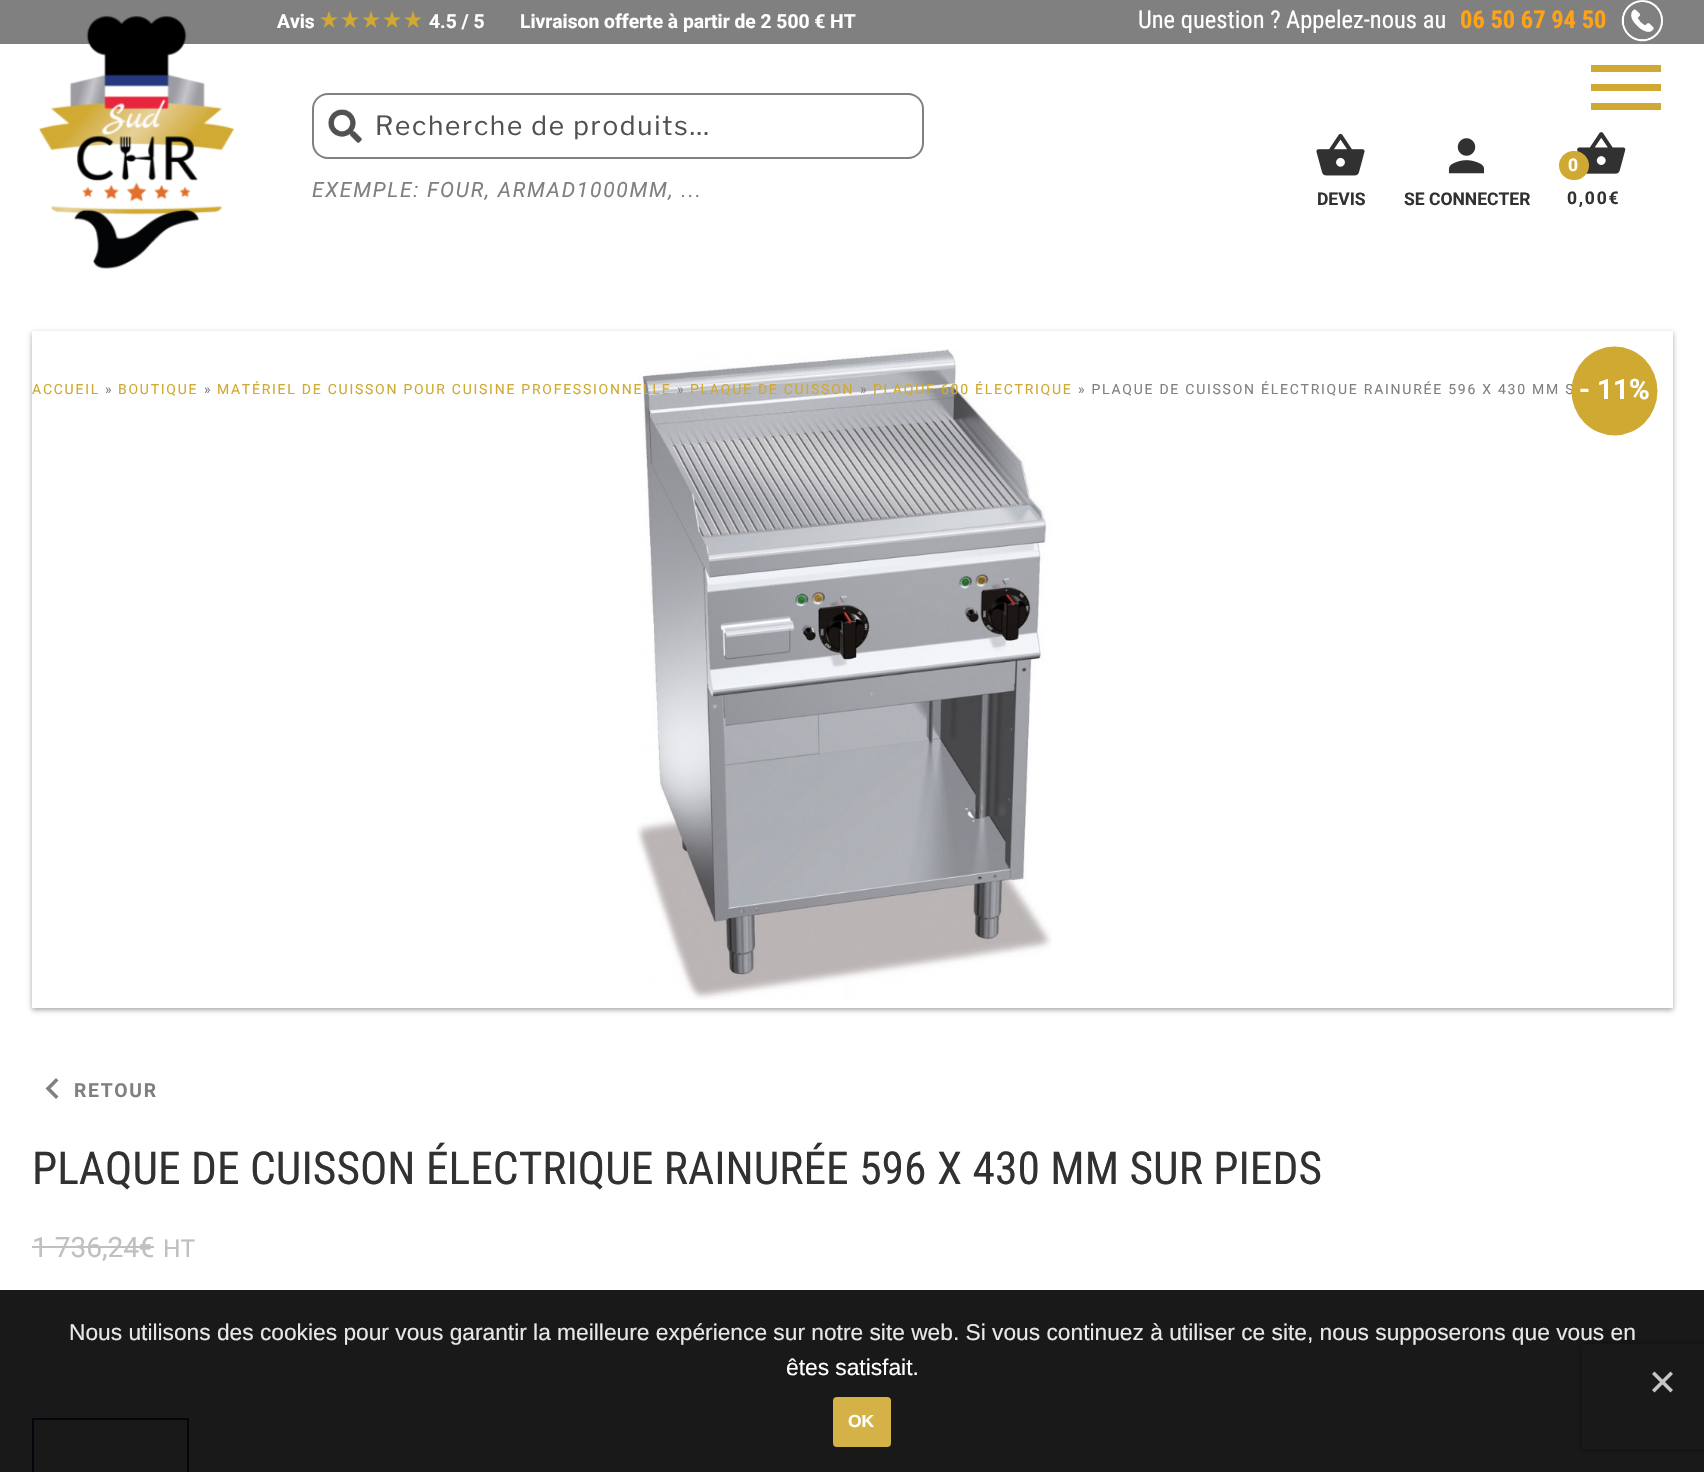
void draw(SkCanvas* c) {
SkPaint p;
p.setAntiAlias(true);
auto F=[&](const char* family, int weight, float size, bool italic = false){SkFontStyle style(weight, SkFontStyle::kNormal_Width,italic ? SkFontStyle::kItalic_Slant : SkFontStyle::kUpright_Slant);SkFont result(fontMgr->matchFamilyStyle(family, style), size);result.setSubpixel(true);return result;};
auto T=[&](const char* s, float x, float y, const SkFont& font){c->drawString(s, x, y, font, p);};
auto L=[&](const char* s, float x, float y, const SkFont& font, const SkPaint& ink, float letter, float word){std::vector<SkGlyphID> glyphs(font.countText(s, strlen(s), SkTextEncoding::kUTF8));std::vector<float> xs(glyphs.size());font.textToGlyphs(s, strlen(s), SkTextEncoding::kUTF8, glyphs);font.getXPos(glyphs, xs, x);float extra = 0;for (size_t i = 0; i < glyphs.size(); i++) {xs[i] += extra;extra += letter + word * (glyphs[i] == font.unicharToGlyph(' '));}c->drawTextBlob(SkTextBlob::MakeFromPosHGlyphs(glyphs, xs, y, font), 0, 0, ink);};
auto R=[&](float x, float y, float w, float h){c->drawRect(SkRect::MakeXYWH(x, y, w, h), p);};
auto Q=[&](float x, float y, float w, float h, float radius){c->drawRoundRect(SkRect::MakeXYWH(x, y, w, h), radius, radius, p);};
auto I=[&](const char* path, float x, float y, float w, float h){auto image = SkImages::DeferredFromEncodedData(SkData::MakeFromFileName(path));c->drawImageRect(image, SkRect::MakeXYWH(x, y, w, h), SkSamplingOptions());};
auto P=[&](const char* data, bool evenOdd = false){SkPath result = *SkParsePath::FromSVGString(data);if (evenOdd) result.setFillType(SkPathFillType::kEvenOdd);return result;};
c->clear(0xffffffff);
p.setColor(0xff808080);
R(0,0,1704,44);
I("1.png",38,15,197,254);
auto f1 = F("Roboto",700,19.25);
p.setColor(0xffffffff);
T("Avis",277,28,f1);
I("2.png",320,11,18,17);
I("2.png",341,11,18,17);
I("2.png",362,11,18,17);
I("2.png",383,11,18,17);
I("2.png",404,11,18,17);
T("4.5 / 5",429,28,f1);
T("Livraison offerte à partir de 2 500 € HT",520,28,f1);
auto f2 = F("Roboto Condensed",400,24.5);
T("Une question ? Appelez-nous au",1138,28,f2);
auto f3 = F("Roboto Condensed",700,24.5);
p.setColor(0xffffa216);
T("06 50 67 94 50",1460,28,f3);
I("3.png",1621,0,42,42);
p.setStroke(true);
p.setStrokeWidth(2);
p.setColor(0xff808080);
c->drawRoundRect(SkRect::MakeXYWH(313,94,610,64),15,15,p);
I("4.png",328,109,34,35);
auto f4 = F("Libre Franklin",100,26.25);
p.setStroke(false);
p.setColor(0xff515151);
L("Recherche de produits…",375,135,f4,p,1.75,0);
auto f5 = F("Roboto",400,21,true);
p.setColor(0xff808080);
L("EXEMPLE: FOUR, ARMAD1000MM, ...",312,197,f5,p,1.75,0);
I("5.png",1316,133,49,43);
auto f6 = F("Roboto",700,17.5);
p.setColor(0xff313131);
T("DEVIS",1317,205,f6);
I("6.png",1448,138,37,36);
T("SE CONNECTER",1404,205,f6);
I("7.png",1577,132,49,42);
p.setColor(0xffcfa932);
Q(1559,151,30,29,14.5);
p.setColor(0xffffffff);
L("0",1568,171,f6,p,1.75,0);
p.setColor(0xff313131);
L("0,00€",1567,204,f6,p,1.75,0);
p.setColor(0xffcfa932);
R(1591,65,70,7);
R(1591,84,70,7);
R(1591,103,70,7);
c->save();
c->clipPath(P("M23 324h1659v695h-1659zm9 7h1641v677h-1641z",true),true);
p.setColor(0x59000000);
p.setMaskFilter(SkMaskFilter::MakeBlur(kNormal_SkBlurStyle, 2.5));
c->drawRect(SkRect::MakeXYWH(32,333,1641,677),p);
p.setMaskFilter(nullptr);
c->restore();
I("8.png",636,349,416,651);
auto f7 = F("Roboto",400,14);
p.setColor(0xff808080);
L("» PLAQUE DE CUISSON ÉLECTRIQUE RAINURÉE 596 X 430 MM S",1078,394,f7,p,1.75,0);
p.setColor(0xffcfa932);
c->drawOval(SkRect::MakeXYWH(1571.5,346.5,86,89),p);
auto f8 = F("Roboto",700,28);
p.setColor(0xffffffff);
T("- 11%",1579,399,f8);
p.setColor(0xff808080);
c->drawPath(P("M58.5 1096.5l-2.5 2.5l-10.5-10.5l10.5-10.5l2.5 2.5l-8 8z"),p);
L("RETOUR",74,1097,f1,p,1.75,0);
auto f9 = F("Roboto Condensed",400,45.5);
p.setColor(0xff313131);
T("PLAQUE DE CUISSON ÉLECTRIQUE RAINURÉE 596 X 430 MM SUR PIEDS",32,1184,f9);
auto f10 = F("Roboto",400,28);
p.setColor(0xffc0c0c0);
T("1 736,24€",32,1257,f10);
R(32,1246,122,2);
auto f11 = F("Roboto",400,24.5);
T("HT",163,1257,f11);
p.setStroke(true);
p.setColor(0xff26377e);
c->drawRect(SkRect::MakeXYWH(33,1419,155,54),p);
p.setStroke(false);
p.setColor(0xffcfa932);
L("ACCUEIL",32,394,f7,p,1.75,0);
p.setColor(0xff808080);
L("»",105,394,f7,p,1.75,0);
p.setColor(0xffcfa932);
L("BOUTIQUE",118,394,f7,p,1.75,0);
p.setColor(0xff808080);
L("»",204,394,f7,p,1.75,0);
p.setColor(0xffcfa932);
L("MATÉRIEL DE CUISSON POUR CUISINE PROFESSIONNELLE",217,394,f7,p,1.75,0);
p.setColor(0xff808080);
L("»",677,394,f7,p,1.75,0);
p.setColor(0xffcfa932);
L("PLAQUE DE CUISSON",690,394,f7,p,1.75,0);
p.setColor(0xff808080);
L("»",860,394,f7,p,1.75,0);
p.setColor(0xffcfa932);
L("PLAQUE 600 ÉLECTRIQUE",873,394,f7,p,1.75,0);
c->save();
c->clipPath(P("M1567 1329h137v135h-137zm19 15h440c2 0 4 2 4 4v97c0 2-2 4-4 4h-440c-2 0-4-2-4-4v-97c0-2 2-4 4-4z",true),true);
p.setColor(0xff808080);
p.setMaskFilter(SkMaskFilter::MakeBlur(kNormal_SkBlurStyle, 4.5));
c->drawRoundRect(SkRect::MakeXYWH(1582,1344,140,105),4,4,p);
p.setMaskFilter(nullptr);
c->restore();
p.setColor(0xe6000000);
R(0,1290,1704,182);
auto f12 = F("Liberation Sans",400,22.75);
p.setColor(0xffe8e8e8);
T("Nous utilisons des cookies pour vous garantir la meilleure expérience sur notre site web. Si vous continuez à utiliser ce site, nous supposerons que vous en",69,1340,f12);
p.setColor(0xffffffff);
T("êtes satisfait.",786,1375,f12);
p.setColor(0xffc6c6c6);
c->drawPath(P("M1670.5 1371.5l2.5 2.5l-18.5 18.5l-2.5-2.5z"),p);
c->drawPath(P("M1652 1374l2.5-2.5l18.5 18.5l-2.5 2.5z"),p);
p.setColor(0xffd4b247);
Q(833,1397,58,50,4);
auto f13 = F("Liberation Sans",700,17.5);
p.setColor(0xffffffff);
T("OK",848,1427,f13);
}
